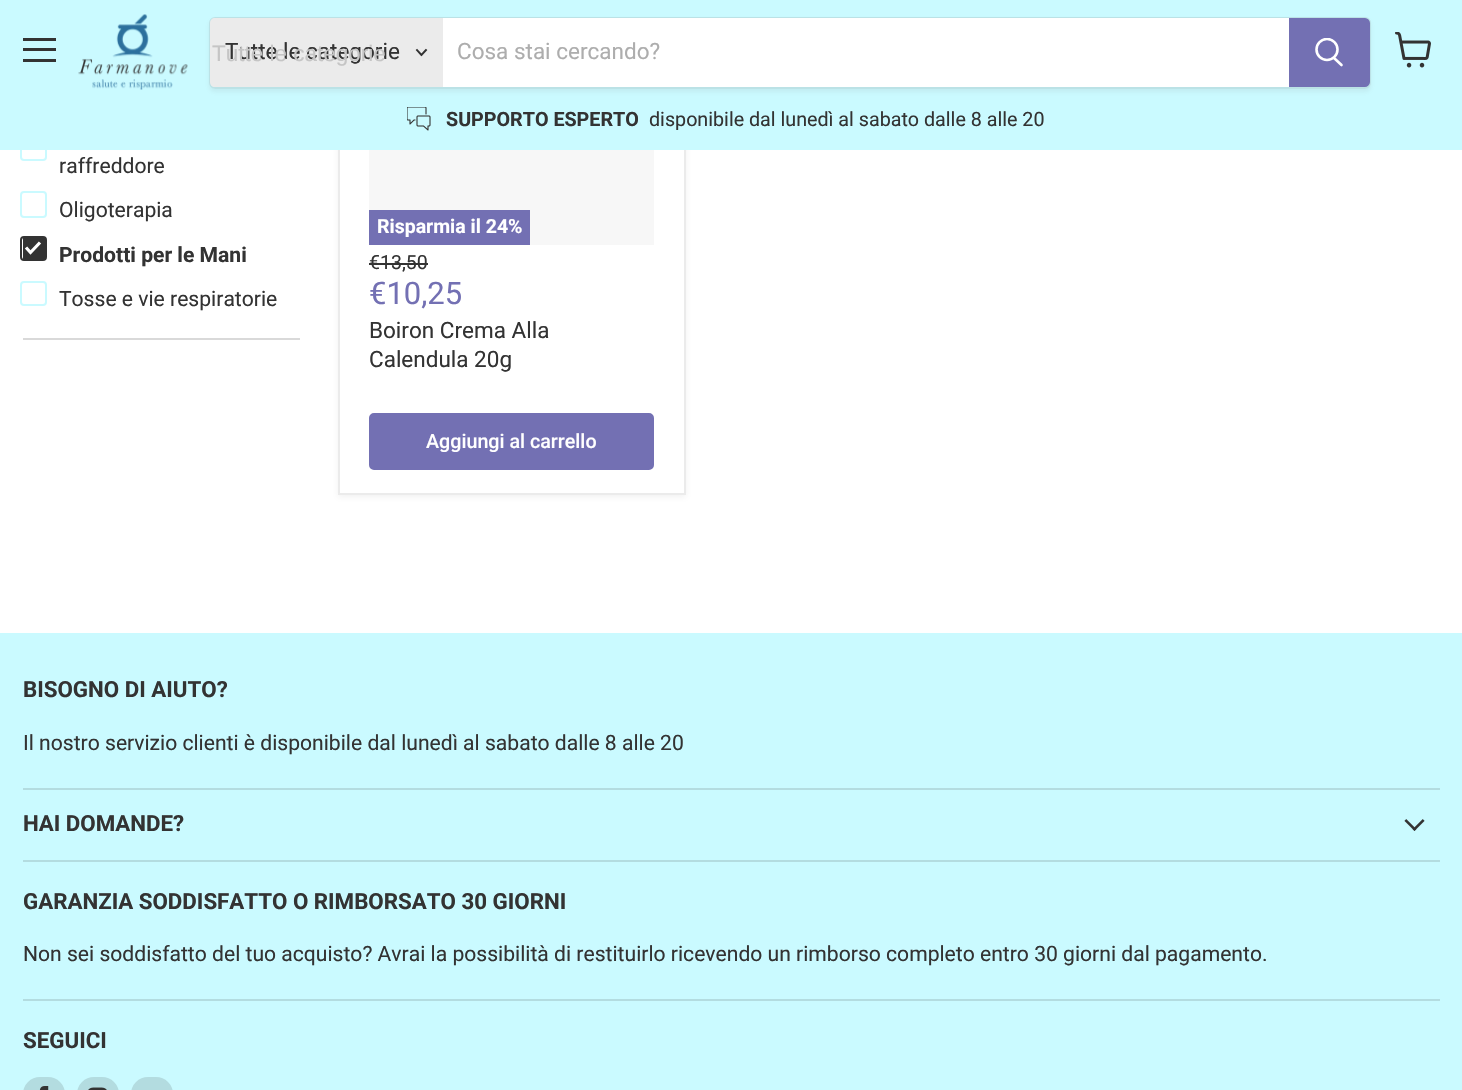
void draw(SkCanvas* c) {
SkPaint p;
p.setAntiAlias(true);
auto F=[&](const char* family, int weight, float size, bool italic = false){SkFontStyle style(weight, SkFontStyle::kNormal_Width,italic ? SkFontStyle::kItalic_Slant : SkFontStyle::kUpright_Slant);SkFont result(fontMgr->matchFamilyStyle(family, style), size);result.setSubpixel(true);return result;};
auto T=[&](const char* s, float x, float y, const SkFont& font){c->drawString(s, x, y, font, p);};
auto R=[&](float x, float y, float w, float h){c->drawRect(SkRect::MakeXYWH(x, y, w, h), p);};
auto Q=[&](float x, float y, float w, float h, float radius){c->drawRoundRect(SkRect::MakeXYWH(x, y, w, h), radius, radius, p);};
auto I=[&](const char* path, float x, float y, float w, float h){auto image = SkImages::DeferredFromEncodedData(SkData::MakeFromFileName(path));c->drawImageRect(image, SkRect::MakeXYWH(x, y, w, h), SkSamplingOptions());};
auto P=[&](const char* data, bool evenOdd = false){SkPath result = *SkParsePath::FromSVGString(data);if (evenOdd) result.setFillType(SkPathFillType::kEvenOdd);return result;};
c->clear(0xffffffff);
p.setStroke(true);
p.setStrokeWidth(2);
p.setColor(0xffcafaff);
c->drawRoundRect(SkRect::MakeXYWH(21,135,25,25),3,3,p);
p.setStroke(false);
p.setColor(0x1c808080);
p.setMaskFilter(SkMaskFilter::MakeBlur(kNormal_SkBlurStyle, 3));
c->drawRect(SkRect::MakeXYWH(338,-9,348,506),p);
p.setMaskFilter(nullptr);
p.setColor(0xffffffff);
R(340,150,344,343);
p.setStroke(true);
p.setColor(0xffebebeb);
c->drawRect(SkRect::MakeXYWH(339,-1,346,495),p);
p.setStroke(false);
p.setColor(0xffcafaff);
R(0,0,1462,150);
p.setColor(0xff333333);
R(23,38,33,3);
R(23,48,33,3);
R(23,59,33,3);
I("1.png",78,14,110,76);
c->save();
c->clipPath(P("M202 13h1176v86h-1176zm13 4h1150c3.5 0 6 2.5 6 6v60c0 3.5-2.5 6-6 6h-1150c-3.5 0-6-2.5-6-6v-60c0-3.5 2.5-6 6-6z",true),true);
p.setColor(0x1c808080);
p.setMaskFilter(SkMaskFilter::MakeBlur(kNormal_SkBlurStyle, 2));
c->drawRoundRect(SkRect::MakeXYWH(209,20,1162,72),6,6,p);
p.setMaskFilter(nullptr);
c->restore();
p.setStroke(true);
p.setColor(0x33808080);
c->drawRoundRect(SkRect::MakeXYWH(210,18,1160,70),5,5,p);
p.setStroke(false);
p.setColor(0xffebebeb);
c->drawPath(P("M215 18h228v69h-228c-3 0-5-2-5-5v-59c0-3 2-5 5-5z"),p);
auto f1 = F("Roboto",400,22.5);
p.setColor(0xff333333);
T("Tutte le categorie",225,59,f1);
auto f2 = F("Liberation Sans",400,22.5);
p.setColor(0xffc5c5c5);
T("Tutte le categorie",212,61,f2);
p.setStroke(true);
p.setStrokeWidth(1.9);
p.setStrokeCap(SkPaint::kSquare_Cap);
p.setColor(0xff333333);
c->drawPath(P("M421.5 55l4.5-5m-4.5 5l-4.5-5"),p);
p.setStroke(false);
p.setColor(0xffffffff);
R(443,18,846,69);
p.setColor(0xffadadad);
T("Cosa stai cercando?",457,59,f1);
p.setColor(0xff7370b3);
c->drawPath(P("M1290 19h75c2 0 4 2 4 4v59c0 2-2 4-4 4h-75z"),p);
p.setStroke(true);
p.setStrokeWidth(2);
p.setStrokeCap(SkPaint::kButt_Cap);
c->drawPath(P("M1290 19h75c2 0 4 2 4 4v59c0 2-2 4-4 4h-75z"),p);
p.setStrokeWidth(2.6);
p.setStrokeCap(SkPaint::kRound_Cap);
p.setColor(0xffffffff);
c->drawPath(P("M1341.5 65l-7.5-7"),p);
c->save();
c->clipRect(SkRect::MakeXYWH(1314,38,30,31));
p.setStrokeCap(SkPaint::kButt_Cap);
c->drawCircle(1327,49.5,10.5,p);
c->restore();
I("2.png",407,107,24,24);
auto f3 = F("Roboto",700,19.7);
p.setStroke(false);
p.setColor(0xff333333);
T("SUPPORTO ESPERTO",446,126,f3);
auto f4 = F("Roboto",400,19.7);
T("disponibile dal lunedì al sabato dalle 8 alle 20",649,126,f4);
I("3.png",1395,32,36,36);
p.setColor(0xffd9d9d9);
R(23,338,277,2);
auto f5 = F("Roboto",400,21.1);
p.setColor(0xff333333);
T("raffreddore",59,173,f5);
p.setStroke(true);
p.setStrokeWidth(2);
p.setColor(0xffcafaff);
c->drawRoundRect(SkRect::MakeXYWH(21,192,25,25),3,3,p);
p.setStroke(false);
p.setColor(0xff333333);
T("Oligoterapia",59,217,f5);
R(23,238,22,21);
p.setStroke(true);
c->drawRoundRect(SkRect::MakeXYWH(21,237,25,23),3,3,p);
p.setStrokeWidth(3.2);
p.setColor(0xffffffff);
c->drawPath(P("M26 247.5l4.5 5l9.5-10"),p);
auto f6 = F("Roboto",700,21.1);
p.setStroke(false);
p.setColor(0xff333333);
T("Prodotti per le Mani",59,262,f6);
p.setStroke(true);
p.setStrokeWidth(2);
p.setColor(0xffcafaff);
c->drawRoundRect(SkRect::MakeXYWH(21,282,25,23),3,3,p);
p.setStroke(false);
p.setColor(0xff333333);
T("Tosse e vie respiratorie",59,306,f5);
p.setColor(0xfff7f7f7);
R(369,150,285,95);
p.setColor(0xff7370b3);
R(369,210,161,35);
auto f7 = F("Roboto",700,19.5);
p.setColor(0xffffffff);
T("Risparmia il 24%",377,233,f7);
auto f8 = F("Roboto",400,19.5);
p.setColor(0xff333333);
T("€13,50",369,269,f8);
R(369,263,59,2);
auto f9 = F("Roboto",400,31);
p.setColor(0xff7370b3);
T("€10,25",369,304,f9);
p.setColor(0xff333333);
T("Boiron Crema Alla",369,338,f1);
T("Calendula 20g",369,367,f1);
p.setColor(0xff7370b3);
c->drawRoundRect(SkRect::MakeXYWH(370,414,283,55),4,4,p);
p.setStroke(true);
c->drawRoundRect(SkRect::MakeXYWH(370,414,283,55),4,4,p);
auto f10 = F("Roboto",500,19.7);
p.setStroke(false);
p.setColor(0xffffffff);
T("Aggiungi al carrello",426,448,f10);
p.setColor(0xffcafaff);
R(0,633,1462,457);
p.setColor(0xffb3dce0);
R(23,788,1417,2);
auto f11 = F("Roboto",700,22.3);
p.setColor(0xff333333);
T("BISOGNO DI AIUTO?",23,697,f11);
T("Il nostro servizio clienti è disponibile dal lunedì al sabato dalle 8 alle 20",23,750,f5);
p.setColor(0xffb3dce0);
R(23,860,1417,2);
p.setColor(0xff333333);
T("HAI DOMANDE?",23,831,f11);
I("4.png",1404,819,21,12);
p.setColor(0xffb3dce0);
R(23,999,1417,2);
p.setColor(0xff333333);
T("GARANZIA SODDISFATTO O RIMBORSATO 30 GIORNI",23,909,f11);
T("Non sei soddisfatto del tuo acquisto? Avrai la possibilità di restituirlo ricevendo un rimborso completo entro 30 giorni dal pagamento.",23,961,f5);
T("SEGUICI",23,1048,f11);
p.setColor(0xffb3dce0);
Q(23,1077,42,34,21);
I("5.png",39,1086,10,4);
Q(77,1077,42,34,21);
I("6.png",88,1087,19,3);
Q(131,1077,42,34,21);
}
